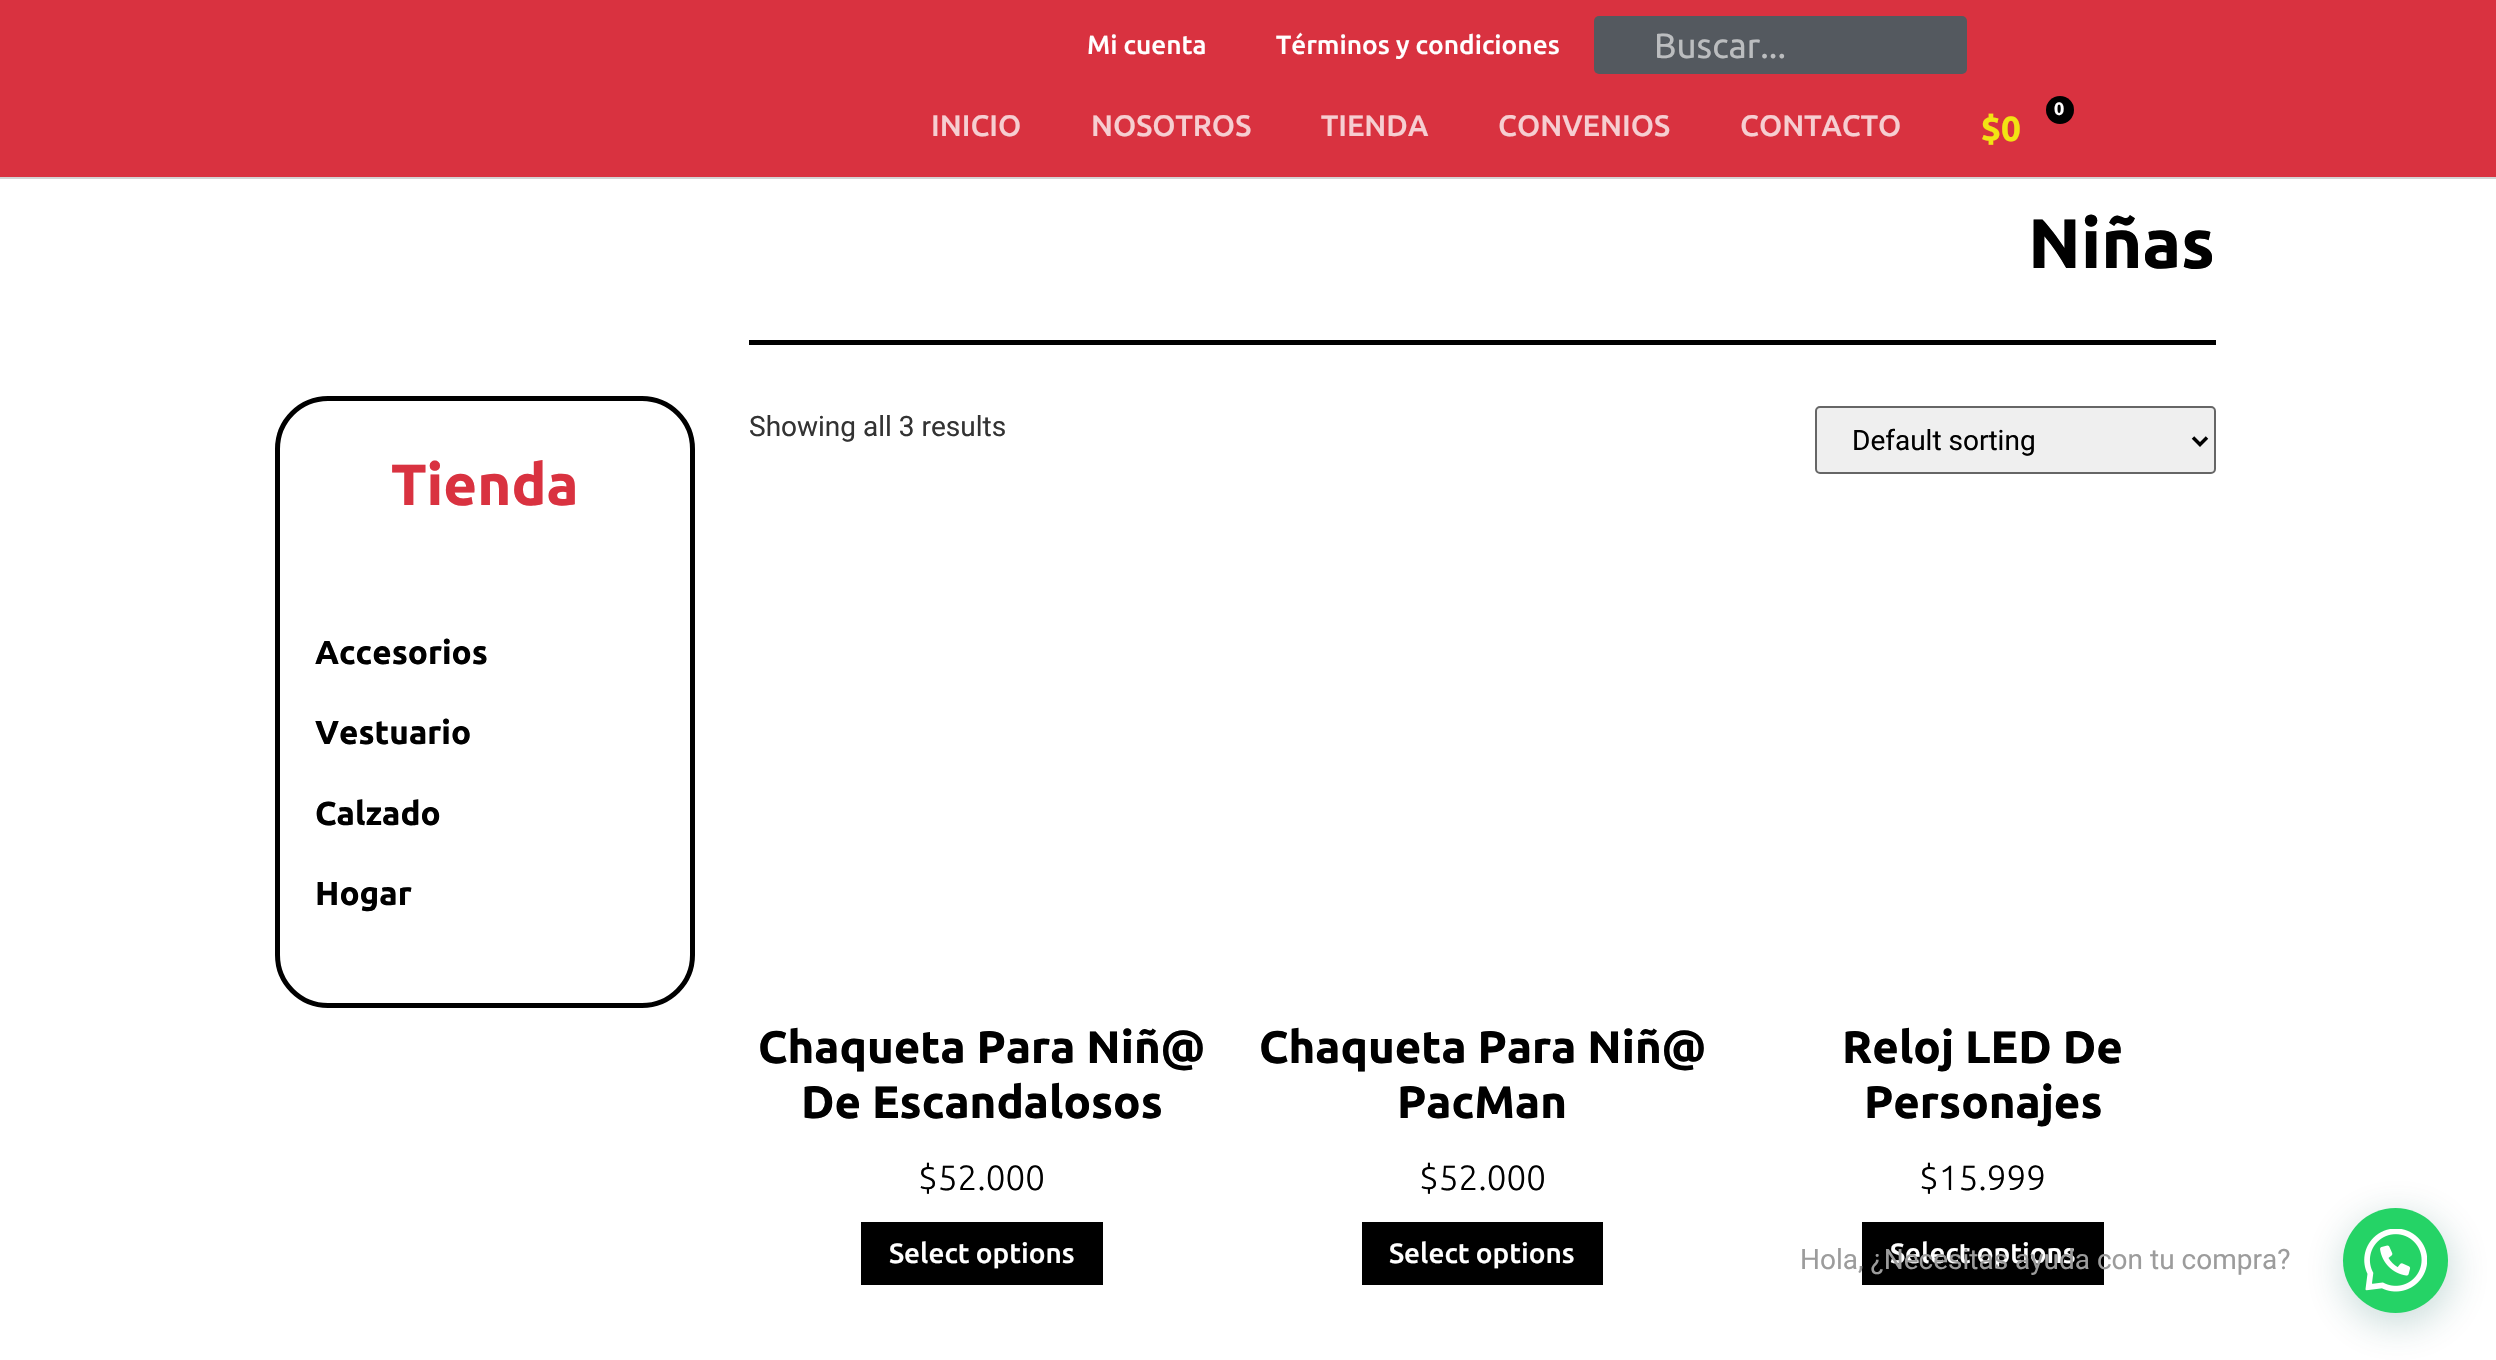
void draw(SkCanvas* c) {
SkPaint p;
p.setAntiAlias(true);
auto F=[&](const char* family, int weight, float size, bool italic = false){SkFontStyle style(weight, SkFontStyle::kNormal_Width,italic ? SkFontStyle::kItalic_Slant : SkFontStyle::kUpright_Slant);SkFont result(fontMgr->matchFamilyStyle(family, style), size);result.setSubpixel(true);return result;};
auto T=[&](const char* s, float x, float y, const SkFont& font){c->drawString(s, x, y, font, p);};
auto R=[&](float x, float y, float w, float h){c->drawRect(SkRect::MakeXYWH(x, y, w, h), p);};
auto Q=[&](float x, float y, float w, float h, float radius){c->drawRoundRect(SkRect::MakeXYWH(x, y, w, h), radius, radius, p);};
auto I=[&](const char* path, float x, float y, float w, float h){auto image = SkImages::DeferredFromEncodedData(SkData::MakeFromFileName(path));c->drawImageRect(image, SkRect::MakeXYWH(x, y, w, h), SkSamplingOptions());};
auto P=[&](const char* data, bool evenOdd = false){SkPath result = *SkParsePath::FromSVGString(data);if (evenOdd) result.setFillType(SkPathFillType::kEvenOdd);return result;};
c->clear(0xffffffff);
p.setColor(0xffd93240);
R(0,0,2496,177);
p.setColor(0xffd3d3d3);
R(0,177,2496,2);
auto f1 = F("Ubuntu",500,26.25);
p.setColor(0xffffffff);
T("Mi cuenta",1087,54,f1);
T("Términos y condiciones",1276,54,f1);
p.setColor(0xff54595f);
Q(1594,16,373,58,5);
auto f2 = F("Ubuntu",400,35);
p.setColor(0xffbbbdbf);
T("Buscar...",1654,58,f2);
auto f3 = F("Ubuntu",500,29.75);
p.setColor(0xfff6ced1);
T("INICIO",931,136,f3);
T("NOSOTROS",1091,136,f3);
T("TIENDA",1321,136,f3);
T("CONVENIOS",1498,136,f3);
T("CONTACTO",1740,136,f3);
p.setColor(0xff000000);
c->drawCircle(2060,110,14,p);
auto f4 = F("Ubuntu",700,18);
p.setColor(0xffffffff);
T("0",2054,115,f4);
auto f5 = F("Ubuntu",700,35);
p.setColor(0xfff2e313);
T("$0",1981,141,f5);
p.setStroke(true);
p.setStrokeWidth(5);
p.setColor(0xff000000);
c->drawRoundRect(SkRect::MakeXYWH(277.5,398.5,415,607),50.5,50.5,p);
auto f6 = F("Ubuntu",700,58);
p.setStroke(false);
p.setColor(0xffd93240);
T("Tienda",391,505,f6);
auto f7 = F("Ubuntu",700,33.25);
p.setColor(0xff000000);
T("Accesorios",315,664,f7);
T("Vestuario",315,744,f7);
T("Calzado",315,825,f7);
T("Hogar",315,905,f7);
auto f8 = F("Ubuntu",700,70);
T("Niñas",2028,268,f8);
R(749,340,1467,5);
auto f9 = F("Roboto",400,28);
p.setColor(0xff333333);
T("Showing all 3 results",749,436,f9);
p.setColor(0xffefefef);
c->drawRoundRect(SkRect::MakeXYWH(1816,407,399,66),4,4,p);
p.setStroke(true);
p.setStrokeWidth(2);
p.setColor(0xff666666);
c->drawRoundRect(SkRect::MakeXYWH(1816,407,399,66),4,4,p);
p.setStrokeWidth(3.5);
p.setColor(0xff000000);
c->drawPath(P("M2193 437.5l7 7l7-7"),p);
p.setStroke(false);
T("Default sorting",1852,450,f9);
auto f10 = F("Ubuntu",700,45.5);
T("Chaqueta Para Niñ@",758,1063,f10);
T("De Escandalosos",801,1118,f10);
auto f11 = F("Ubuntu",300,35);
T("$52.000",918,1190,f11);
R(861,1222,242,63);
auto f12 = F("Ubuntu",500,28);
p.setColor(0xffffffff);
T("Select options",889,1263,f12);
p.setColor(0xff000000);
T("Chaqueta Para Niñ@",1259,1063,f10);
T("PacMan",1397,1118,f10);
T("$52.000",1419,1190,f11);
R(1362,1222,241,63);
p.setColor(0xffffffff);
T("Select options",1389,1263,f12);
p.setColor(0xff000000);
T("Reloj LED De",1842,1063,f10);
T("Personajes",1864,1118,f10);
T("$15.999",1919,1190,f11);
R(1862,1222,242,63);
p.setColor(0xffffffff);
T("Select options",1890,1263,f12);
p.setColor(0x3d075e54);
p.setMaskFilter(SkMaskFilter::MakeBlur(kNormal_SkBlurStyle, 21));
c->drawRoundRect(SkRect::MakeXYWH(2345,1218,105,105),52.5,52.5,p);
p.setMaskFilter(nullptr);
p.setColor(0xff25d366);
c->drawCircle(2395.5,1260.5,52.5,p);
p.setColor(0xff9c9c9c);
T("Hola, ¿Necesitas ayuda con tu compra?",1800,1269,f9);
I("1.png",2364,1229,63,63);
}
